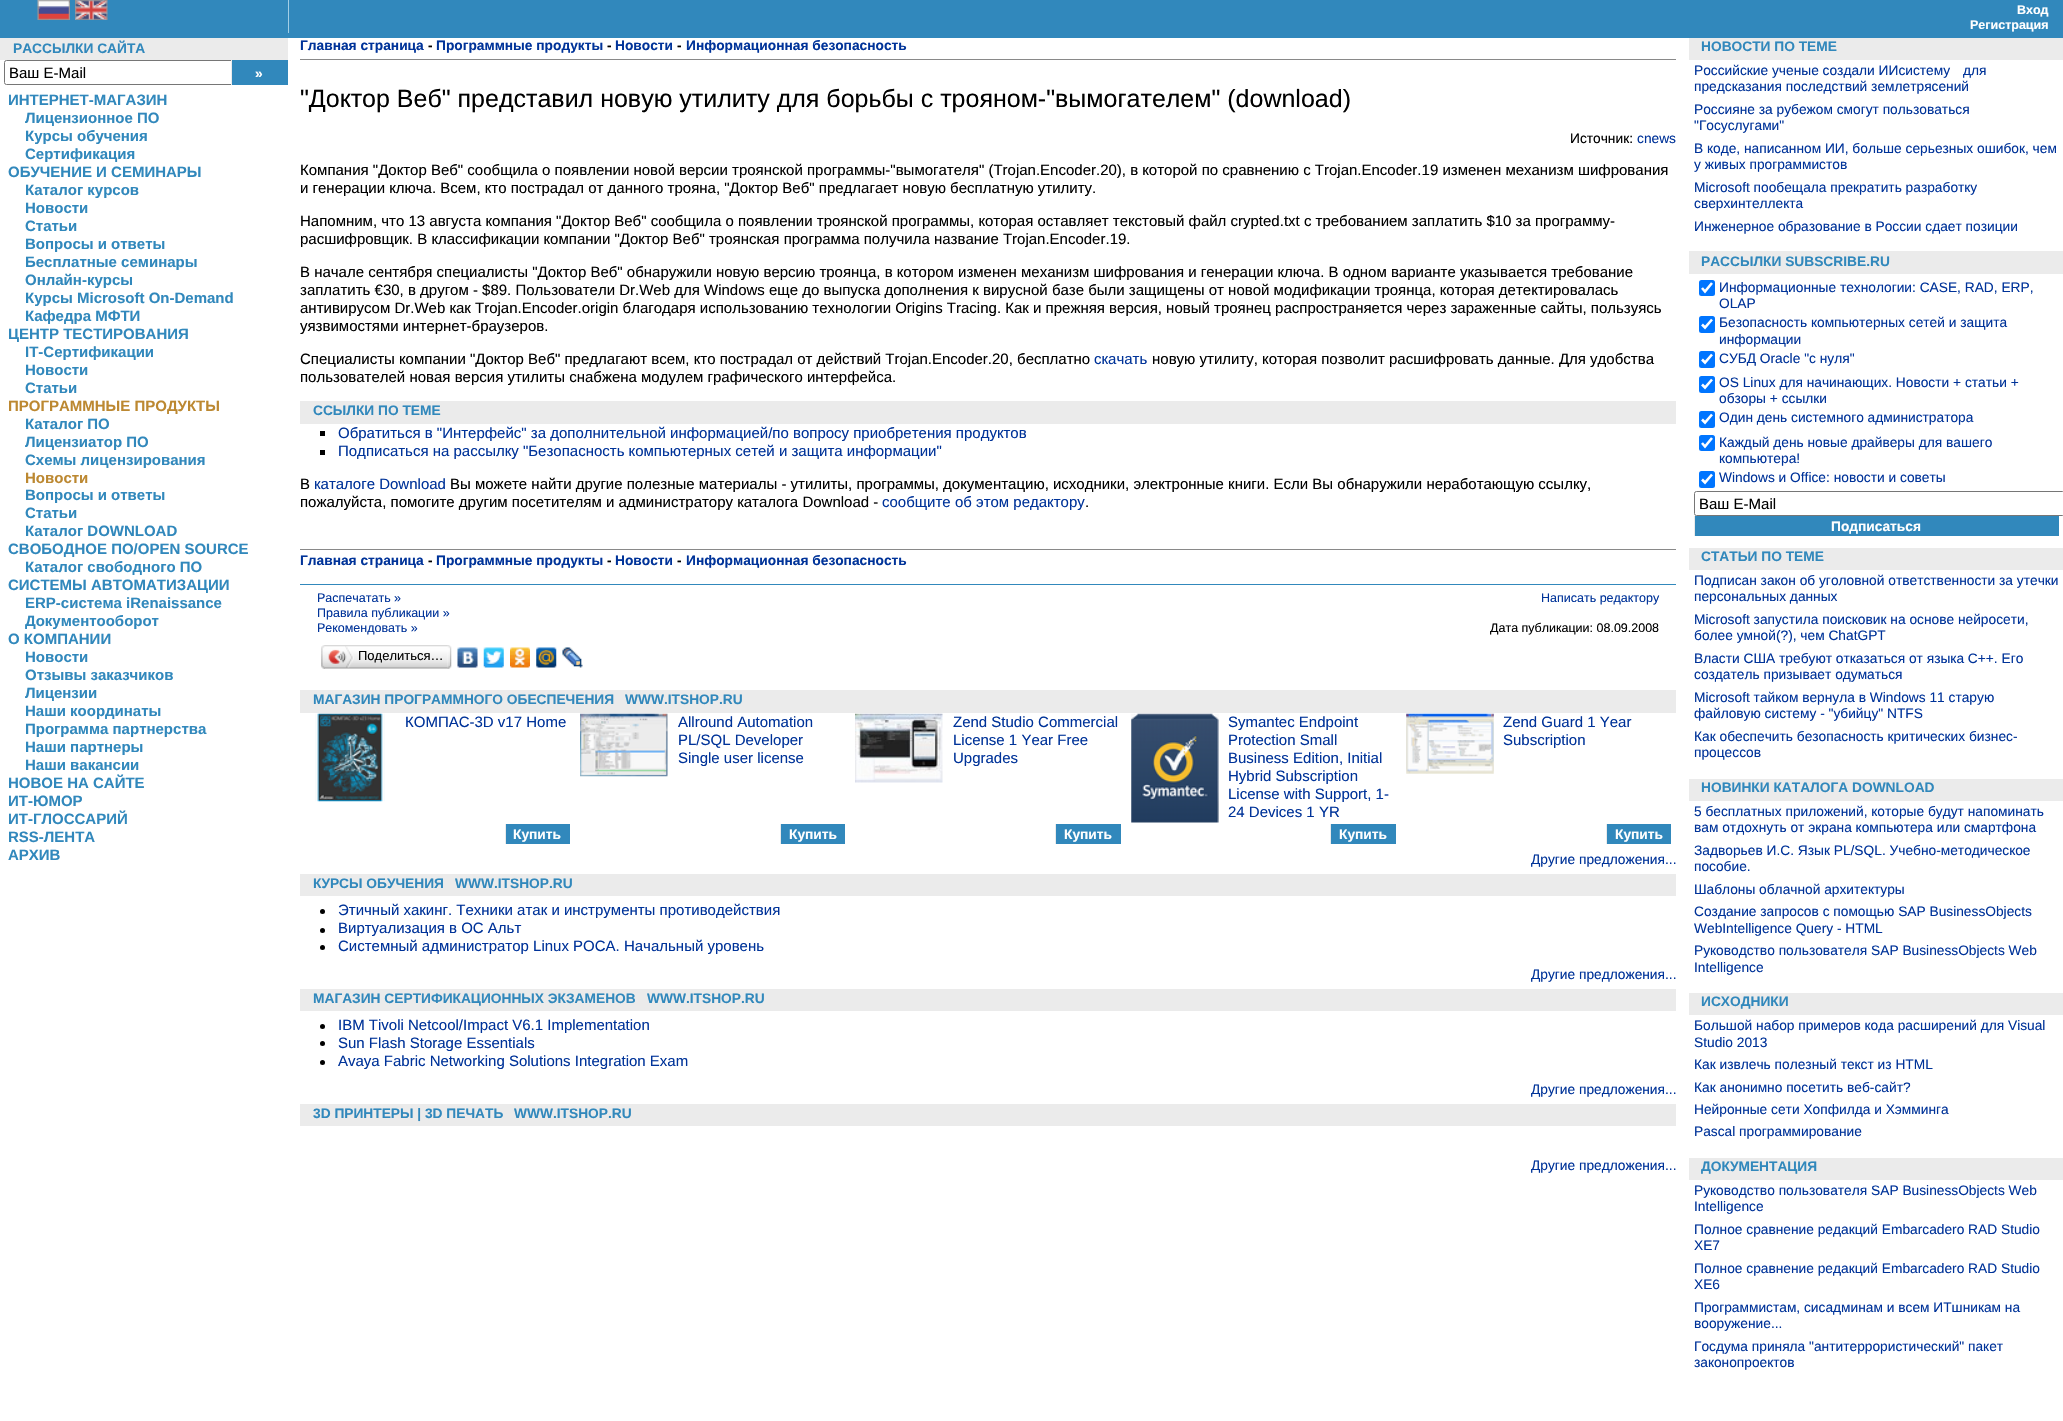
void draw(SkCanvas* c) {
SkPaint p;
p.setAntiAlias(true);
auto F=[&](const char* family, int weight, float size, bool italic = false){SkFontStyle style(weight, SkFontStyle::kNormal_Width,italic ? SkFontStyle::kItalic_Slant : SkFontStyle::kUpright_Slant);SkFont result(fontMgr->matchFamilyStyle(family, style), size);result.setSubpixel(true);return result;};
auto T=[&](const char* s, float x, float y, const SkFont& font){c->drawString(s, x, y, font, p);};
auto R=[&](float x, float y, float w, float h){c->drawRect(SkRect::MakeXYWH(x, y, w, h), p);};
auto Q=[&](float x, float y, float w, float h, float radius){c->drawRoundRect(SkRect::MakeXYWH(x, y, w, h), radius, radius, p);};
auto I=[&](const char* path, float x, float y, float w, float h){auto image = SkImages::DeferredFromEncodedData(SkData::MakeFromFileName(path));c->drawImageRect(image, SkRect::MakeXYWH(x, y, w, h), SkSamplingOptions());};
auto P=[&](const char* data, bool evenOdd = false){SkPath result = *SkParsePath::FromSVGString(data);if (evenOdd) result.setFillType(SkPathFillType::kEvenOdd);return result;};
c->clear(0xffffffff);
p.setColor(0xff3188bc);
R(0,0,2063,38);
I("1.png",37,0,33,20);
I("2.png",75,0,33,20);
p.setColor(0xffa2cee6);
R(288,0,1,33);
auto f1 = F("Liberation Sans",700,12.5);
p.setColor(0xffffffff);
T("Вход",2017,14,f1);
T("Регистрация",1970,29,f1);
p.setColor(0xffebebeb);
R(0,38,288,22);
auto f2 = F("Liberation Sans",700,13.75);
p.setColor(0xff3188bc);
T("РАССЫЛКИ САЙТА",13,53,f2);
p.setStroke(true);
p.setStrokeWidth(1);
p.setColor(0xff767676);
c->drawRoundRect(SkRect::MakeXYWH(4.5,60.5,234,24),2,2,p);
auto f3 = F("Liberation Sans",400,15);
p.setStroke(false);
p.setColor(0xff000000);
T("Ваш E-Mail",9,78,f3);
p.setColor(0xff3188bc);
R(232,60,56,25);
p.setColor(0xffebebeb);
R(231,60,1,25);
p.setColor(0xffffffff);
T("»",255,78,f2);
auto f4 = F("Liberation Sans",700,15);
p.setColor(0xff3188bc);
T("ИНТЕРНЕТ-МАГАЗИН",8,105,f4);
T("Лицензионное ПО",25,123,f4);
T("Курсы обучения",25,141,f4);
T("Сертификация",25,159,f4);
T("ОБУЧЕНИЕ И СЕМИНАРЫ",8,177,f4);
T("Каталог курсов",25,195,f4);
T("Новости",25,213,f4);
T("Статьи",25,231,f4);
T("Вопросы и ответы",25,249,f4);
T("Бесплатные семинары",25,267,f4);
T("Онлайн-курсы",25,285,f4);
T("Курсы Microsoft On-Demand",25,303,f4);
T("Кафедра МФТИ",25,321,f4);
T("ЦЕНТР ТЕСТИРОВАНИЯ",8,339,f4);
T("IT-Сертификации",25,357,f4);
T("Новости",25,375,f4);
T("Статьи",25,393,f4);
p.setColor(0xffbc8831);
T("ПРОГРАММНЫЕ ПРОДУКТЫ",8,411,f4);
p.setColor(0xff3188bc);
T("Каталог ПО",25,429,f4);
T("Лицензиатор ПО",25,447,f4);
T("Схемы лицензирования",25,465,f4);
p.setColor(0xffbc8831);
T("Новости",25,483,f4);
p.setColor(0xff3188bc);
T("Вопросы и ответы",25,500,f4);
T("Статьи",25,518,f4);
T("Каталог DOWNLOAD",25,536,f4);
T("СВОБОДНОЕ ПО/OPEN SOURCE",8,554,f4);
T("Каталог свободного ПО",25,572,f4);
T("СИСТЕМЫ АВТОМАТИЗАЦИИ",8,590,f4);
T("ERP-система iRenaissance",25,608,f4);
T("Документооборот",25,626,f4);
T("О КОМПАНИИ",8,644,f4);
T("Новости",25,662,f4);
T("Отзывы заказчиков",25,680,f4);
T("Лицензии",25,698,f4);
T("Наши координаты",25,716,f4);
T("Программа партнерства",25,734,f4);
T("Наши партнеры",25,752,f4);
T("Наши вакансии",25,770,f4);
T("НОВОЕ НА САЙТЕ",8,788,f4);
T("ИТ-ЮМОР",8,806,f4);
T("ИТ-ГЛОССАРИЙ",8,824,f4);
T("RSS-ЛЕНТА",8,842,f4);
T("АРХИВ",8,860,f4);
p.setColor(0xff898989);
R(300,59,1376,1);
p.setColor(0xff003399);
T("Главная страница",300,50,f2);
p.setColor(0xff000000);
T("-",428,50,f2);
p.setColor(0xff003399);
T("Программные продукты",436,50,f2);
p.setColor(0xff000000);
T("-",607,50,f2);
p.setColor(0xff003399);
T("Новости",615,50,f2);
p.setColor(0xff000000);
T("-",677,50,f2);
p.setColor(0xff003399);
T("Информационная безопасность",686,50,f2);
auto f5 = F("Liberation Sans",400,25);
p.setColor(0xff000000);
T("\"Доктор Веб\" представил новую утилиту для борьбы с трояном-\"вымогателем\" (download)",300,107,f5);
auto f6 = F("Liberation Sans",400,13.75);
T("Источник:",1570,143,f6);
p.setColor(0xff003399);
T("cnews",1637,143,f6);
p.setColor(0xff000000);
T("Компания \"Доктор Веб\" сообщила о появлении новой версии троянской программы-\"вымогателя\" (Trojan.Encoder.20), в которой по сравнению с Trojan.Encoder.19 изменен механизм шифрования",300,175,f3);
T("и генерации ключа. Всем, кто пострадал от данного трояна, \"Доктор Веб\" предлагает новую бесплатную утилиту.",300,193,f3);
T("Напомним, что 13 августа компания \"Доктор Веб\" сообщила о появлении троянской программы, которая оставляет текстовый файл crypted.txt с требованием заплатить $10 за программу-",300,226,f3);
T("расшифровщик. В классификации компании \"Доктор Веб\" троянская программа получила название Trojan.Encoder.19.",300,244,f3);
T("В начале сентября специалисты \"Доктор Веб\" обнаружили новую версию троянца, в котором изменен механизм шифрования и генерации ключа. В одном варианте указывается требование",300,277,f3);
T("заплатить €30, в другом - $89. Пользователи Dr.Web для Windows еще до выпуска дополнения к вирусной базе были защищены от новой модификации троянца, которая детектировалась",300,295,f3);
T("антивирусом Dr.Web как Trojan.Encoder.origin благодаря использованию технологии Origins Tracing. Как и прежняя версия, новый троянец распространяется через зараженные сайты, пользуясь",300,313,f3);
T("уязвимостями интернет-браузеров.",300,331,f3);
T("Специалисты компании \"Доктор Веб\" предлагают всем, кто пострадал от действий Trojan.Encoder.20, бесплатно",300,364,f3);
p.setColor(0xff003399);
T("скачать",1094,364,f3);
p.setColor(0xff000000);
T("новую утилиту, которая позволит расшифровать данные. Для удобства",1152,364,f3);
T("пользователей новая версия утилиты снабжена модулем графического интерфейса.",300,382,f3);
p.setColor(0xffebebeb);
R(300,401,1376,23);
p.setColor(0xff3188bc);
T("ССЫЛКИ ПО ТЕМЕ",313,415,f2);
p.setColor(0xff000000);
R(320,431,5,5);
p.setColor(0xff003399);
T("Обратиться в \"Интерфейс\" за дополнительной информацией/по вопросу приобретения продуктов",338,438,f3);
p.setColor(0xff000000);
R(320,450,5,5);
p.setColor(0xff003399);
T("Подписаться на рассылку \"Безопасность компьютерных сетей и защита информации\"",338,456,f3);
p.setColor(0xff000000);
T("В",300,489,f3);
p.setColor(0xff003399);
T("каталоге Download",314,489,f3);
p.setColor(0xff000000);
T("Вы можете найти другие полезные материалы - утилиты, программы, документацию, исходники, электронные книги. Если Вы обнаружили неработающую ссылку,",450,489,f3);
T("пожалуйста, помогите другим посетителям и администратору каталога Download -",300,507,f3);
p.setColor(0xff003399);
T("сообщите об этом редактору",882,507,f3);
p.setColor(0xff000000);
T(".",1085,507,f3);
p.setColor(0xff898989);
R(300,549,1376,1);
p.setColor(0xff003399);
T("Главная страница",300,565,f2);
p.setColor(0xff000000);
T("-",428,565,f2);
p.setColor(0xff003399);
T("Программные продукты",436,565,f2);
p.setColor(0xff000000);
T("-",607,565,f2);
p.setColor(0xff003399);
T("Новости",615,565,f2);
p.setColor(0xff000000);
T("-",677,565,f2);
p.setColor(0xff003399);
T("Информационная безопасность",686,565,f2);
p.setColor(0xff3188bc);
R(300,584,1376,1);
auto f7 = F("Liberation Sans",400,12.5);
p.setColor(0xff003399);
T("Распечатать »",317,602,f7);
T("Правила публикации »",317,617,f7);
T("Написать редактору",1541,602,f7);
T("Рекомендовать »",317,632,f7);
p.setColor(0xff000000);
T("Дата публикации: 08.09.2008",1490,632,f7);
I("3.png",325,645,123,24);
I("4.png",321,645,4,24);
I("5.png",328,646,26,22);
auto f8 = F("Liberation Sans",400,13);
T("Поделиться…",358,660,f8);
I("6.png",447,645,5,24);
I("7.png",457,647,21,21);
I("8.png",483,647,21,21);
I("9.png",510,647,20,21);
I("10.png",536,647,21,21);
I("11.png",562,647,21,21);
p.setColor(0xffebebeb);
R(300,690,1376,23);
p.setColor(0xff3188bc);
T("МАГАЗИН ПРОГРАММНОГО ОБЕСПЕЧЕНИЯ",313,704,f2);
T("WWW.ITSHOP.RU",625,704,f2);
I("12.png",315,713,70,89);
p.setColor(0xff003399);
T("КОМПАС-3D v17 Home",405,727,f3);
p.setColor(0xff3188bc);
R(506,824,64,20);
p.setColor(0xffebebeb);
R(505,824,1,20);
p.setColor(0xffffffff);
T("Купить",513,839,f2);
I("13.png",580,713,88,64);
p.setColor(0xff003399);
T("Allround Automation",678,727,f3);
T("PL/SQL Developer",678,745,f3);
T("Single user license",678,763,f3);
p.setColor(0xff3188bc);
R(781,824,64,20);
p.setColor(0xffebebeb);
R(780,824,1,20);
p.setColor(0xffffffff);
T("Купить",789,839,f2);
I("14.png",855,713,88,70);
p.setColor(0xff003399);
T("Zend Studio Commercial",953,727,f3);
T("License 1 Year Free",953,745,f3);
T("Upgrades",953,763,f3);
p.setColor(0xff3188bc);
R(1056,824,65,20);
p.setColor(0xffebebeb);
R(1055,824,1,20);
p.setColor(0xffffffff);
T("Купить",1064,839,f2);
I("15.png",1131,713,88,110);
p.setColor(0xff003399);
T("Symantec Endpoint",1228,727,f3);
T("Protection Small",1228,745,f3);
T("Business Edition, Initial",1228,763,f3);
T("Hybrid Subscription",1228,781,f3);
T("License with Support, 1-",1228,799,f3);
T("24 Devices 1 YR",1228,817,f3);
p.setColor(0xff3188bc);
R(1331,824,65,20);
p.setColor(0xffebebeb);
R(1330,824,1,20);
p.setColor(0xffffffff);
T("Купить",1339,839,f2);
I("16.png",1406,713,88,61);
p.setColor(0xff003399);
T("Zend Guard 1 Year",1503,727,f3);
T("Subscription",1503,745,f3);
p.setColor(0xff3188bc);
R(1607,824,64,20);
p.setColor(0xffebebeb);
R(1606,824,1,20);
p.setColor(0xffffffff);
T("Купить",1615,839,f2);
p.setColor(0xff003399);
T("Другие предложения...",1531,864,f6);
p.setColor(0xffebebeb);
R(300,874,1376,22);
p.setColor(0xff3188bc);
T("КУРСЫ ОБУЧЕНИЯ",313,888,f2);
T("WWW.ITSHOP.RU",455,888,f2);
p.setColor(0xff000000);
c->drawCircle(322.5,911.5,2.5,p);
p.setColor(0xff003399);
T("Этичный хакинг. Техники атак и инструменты противодействия",338,915,f3);
p.setColor(0xff000000);
c->drawCircle(322.5,930.5,2.5,p);
p.setColor(0xff003399);
T("Виртуализация в ОС Альт",338,933,f3);
p.setColor(0xff000000);
c->drawCircle(322.5,947.5,2.5,p);
p.setColor(0xff003399);
T("Системный администратор Linux РОСА. Начальный уровень",338,951,f3);
T("Другие предложения...",1531,979,f6);
p.setColor(0xffebebeb);
R(300,989,1376,22);
p.setColor(0xff3188bc);
T("МАГАЗИН СЕРТИФИКАЦИОННЫХ ЭКЗАМЕНОВ",313,1003,f2);
T("WWW.ITSHOP.RU",647,1003,f2);
p.setColor(0xff000000);
c->drawCircle(322.5,1026.5,2.5,p);
p.setColor(0xff003399);
T("IBM Tivoli Netcool/Impact V6.1 Implementation",338,1030,f3);
p.setColor(0xff000000);
c->drawCircle(322.5,1043.5,2.5,p);
p.setColor(0xff003399);
T("Sun Flash Storage Essentials",338,1048,f3);
p.setColor(0xff000000);
c->drawCircle(322.5,1062.5,2.5,p);
p.setColor(0xff003399);
T("Avaya Fabric Networking Solutions Integration Exam",338,1066,f3);
T("Другие предложения...",1531,1094,f6);
p.setColor(0xffebebeb);
R(300,1104,1376,22);
p.setColor(0xff3188bc);
T("3D ПРИНТЕРЫ | 3D ПЕЧАТЬ",313,1118,f2);
T("WWW.ITSHOP.RU",514,1118,f2);
p.setColor(0xff003399);
T("Другие предложения...",1531,1170,f6);
p.setColor(0xffebebeb);
R(1689,38,374,22);
p.setColor(0xff3188bc);
T("НОВОСТИ ПО ТЕМЕ",1701,51,f2);
p.setColor(0xff003399);
T("Российские ученые создали ИИ‑систему",1694,75,f6);
T("для",1963,75,f6);
T("предсказания последствий землетрясений",1694,91,f6);
T("Россияне за рубежом смогут пользоваться",1694,114,f6);
T("\"Госуслугами\"",1694,130,f6);
T("В коде, написанном ИИ, больше серьезных ошибок, чем",1694,153,f6);
T("у живых программистов",1694,169,f6);
T("Microsoft пообещала прекратить разработку",1694,192,f6);
T("сверхинтеллекта",1694,208,f6);
T("Инженерное образование в России сдает позиции",1694,231,f6);
p.setColor(0xffebebeb);
R(1689,251,374,23);
p.setColor(0xff3188bc);
T("РАССЫЛКИ SUBSCRIBE.RU",1701,266,f2);
p.setColor(0xff0075ff);
Q(1699,280,16,16,2.5);
p.setStroke(true);
p.setStrokeWidth(2.6);
p.setColor(0xffffffff);
c->drawPath(P("M1702 288l3 3.5l7-8.5"),p);
p.setStroke(false);
p.setColor(0xff003399);
T("Информационные технологии: CASE, RAD, ERP,",1719,292,f6);
T("OLAP",1719,308,f6);
p.setColor(0xff0075ff);
Q(1699,316,16,17,2.5);
p.setStroke(true);
p.setColor(0xffffffff);
c->drawPath(P("M1702 324.5l3 3l7-8"),p);
p.setStroke(false);
p.setColor(0xff003399);
T("Безопасность компьютерных сетей и защита",1719,327,f6);
T("информации",1719,344,f6);
p.setColor(0xff0075ff);
Q(1699,351,16,17,2.5);
p.setStroke(true);
p.setColor(0xffffffff);
c->drawPath(P("M1702 359.5l3 3l7-8"),p);
p.setStroke(false);
p.setColor(0xff003399);
T("СУБД Oracle \"с нуля\"",1719,363,f6);
p.setColor(0xff0075ff);
Q(1699,376,16,17,2.5);
p.setStroke(true);
p.setColor(0xffffffff);
c->drawPath(P("M1702 384.5l3 3l7-8"),p);
p.setStroke(false);
p.setColor(0xff003399);
T("OS Linux для начинающих. Новости + статьи +",1719,387,f6);
T("обзоры + ссылки",1719,403,f6);
p.setColor(0xff0075ff);
Q(1699,411,16,17,2.5);
p.setStroke(true);
p.setColor(0xffffffff);
c->drawPath(P("M1702 419.5l3 3l7-8"),p);
p.setStroke(false);
p.setColor(0xff003399);
T("Один день системного администратора",1719,422,f6);
p.setColor(0xff0075ff);
Q(1699,435,16,16,2.5);
p.setStroke(true);
p.setColor(0xffffffff);
c->drawPath(P("M1702 443l3 3.5l7-8.5"),p);
p.setStroke(false);
p.setColor(0xff003399);
T("Каждый день новые драйверы для вашего",1719,447,f6);
T("компьютера!",1719,463,f6);
p.setColor(0xff0075ff);
Q(1699,471,16,17,2.5);
p.setStroke(true);
p.setColor(0xffffffff);
c->drawPath(P("M1702 479.5l3 3l7-8"),p);
p.setStroke(false);
p.setColor(0xff003399);
T("Windows и Office: новости и советы",1719,482,f6);
p.setStroke(true);
p.setStrokeWidth(1);
p.setColor(0xff767676);
c->drawRoundRect(SkRect::MakeXYWH(1694.5,491.5,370,24),2,2,p);
p.setStroke(false);
p.setColor(0xff000000);
T("Ваш E-Mail",1699,509,f3);
p.setColor(0xff3188bc);
R(1695,516,364,20);
p.setColor(0xffebebeb);
R(1694,516,1,20);
p.setColor(0xffffffff);
T("Подписаться",1831,531,f2);
p.setColor(0xffebebeb);
R(1689,548,374,22);
p.setColor(0xff3188bc);
T("СТАТЬИ ПО ТЕМЕ",1701,561,f2);
p.setColor(0xff003399);
T("Подписан закон об уголовной ответственности за утечки",1694,585,f6);
T("персональных данных",1694,601,f6);
T("Microsoft запустила поисковик на основе нейросети,",1694,624,f6);
T("более умной(?), чем ChatGPT",1694,640,f6);
T("Власти США требуют отказаться от языка C++. Его",1694,663,f6);
T("создатель призывает одуматься",1694,679,f6);
T("Microsoft тайком вернула в Windows 11 старую",1694,702,f6);
T("файловую систему - \"убийцу\" NTFS",1694,718,f6);
T("Как обеспечить безопасность критических бизнес-",1694,741,f6);
T("процессов",1694,757,f6);
p.setColor(0xffebebeb);
R(1689,779,374,22);
p.setColor(0xff3188bc);
T("НОВИНКИ КАТАЛОГА DOWNLOAD",1701,792,f2);
p.setColor(0xff003399);
T("5 бесплатных приложений, которые будут напоминать",1694,816,f6);
T("вам отдохнуть от экрана компьютера или смартфона",1694,832,f6);
T("Задворьев И.С. Язык PL/SQL. Учебно-методическое",1694,855,f6);
T("пособие.",1694,871,f6);
T("Шаблоны облачной архитектуры",1694,894,f6);
T("Создание запросов с помощью SAP BusinessObjects",1694,916,f6);
T("WebIntelligence Query - HTML",1694,933,f6);
T("Руководство пользователя SAP BusinessObjects Web",1694,955,f6);
T("Intelligence",1694,972,f6);
p.setColor(0xffebebeb);
R(1689,993,374,22);
p.setColor(0xff3188bc);
T("ИСХОДНИКИ",1701,1006,f2);
p.setColor(0xff003399);
T("Большой набор примеров кода расширений для Visual",1694,1030,f6);
T("Studio 2013",1694,1047,f6);
T("Как извлечь полезный текст из HTML",1694,1069,f6);
T("Как анонимно посетить веб-сайт?",1694,1092,f6);
T("Нейронные сети Хопфилда и Хэмминга",1694,1114,f6);
T("Pascal программирование",1694,1136,f6);
p.setColor(0xffebebeb);
R(1689,1158,374,22);
p.setColor(0xff3188bc);
T("ДОКУМЕНТАЦИЯ",1701,1171,f2);
p.setColor(0xff003399);
T("Руководство пользователя SAP BusinessObjects Web",1694,1195,f6);
T("Intelligence",1694,1211,f6);
T("Полное сравнение редакций Embarcadero RAD Studio",1694,1234,f6);
T("XE7",1694,1250,f6);
T("Полное сравнение редакций Embarcadero RAD Studio",1694,1273,f6);
T("XE6",1694,1289,f6);
T("Программистам, сисадминам и всем ИТшникам на",1694,1312,f6);
T("вооружение...",1694,1328,f6);
T("Госдума приняла \"антитеррористический\" пакет",1694,1351,f6);
T("законопроектов",1694,1367,f6);
}
